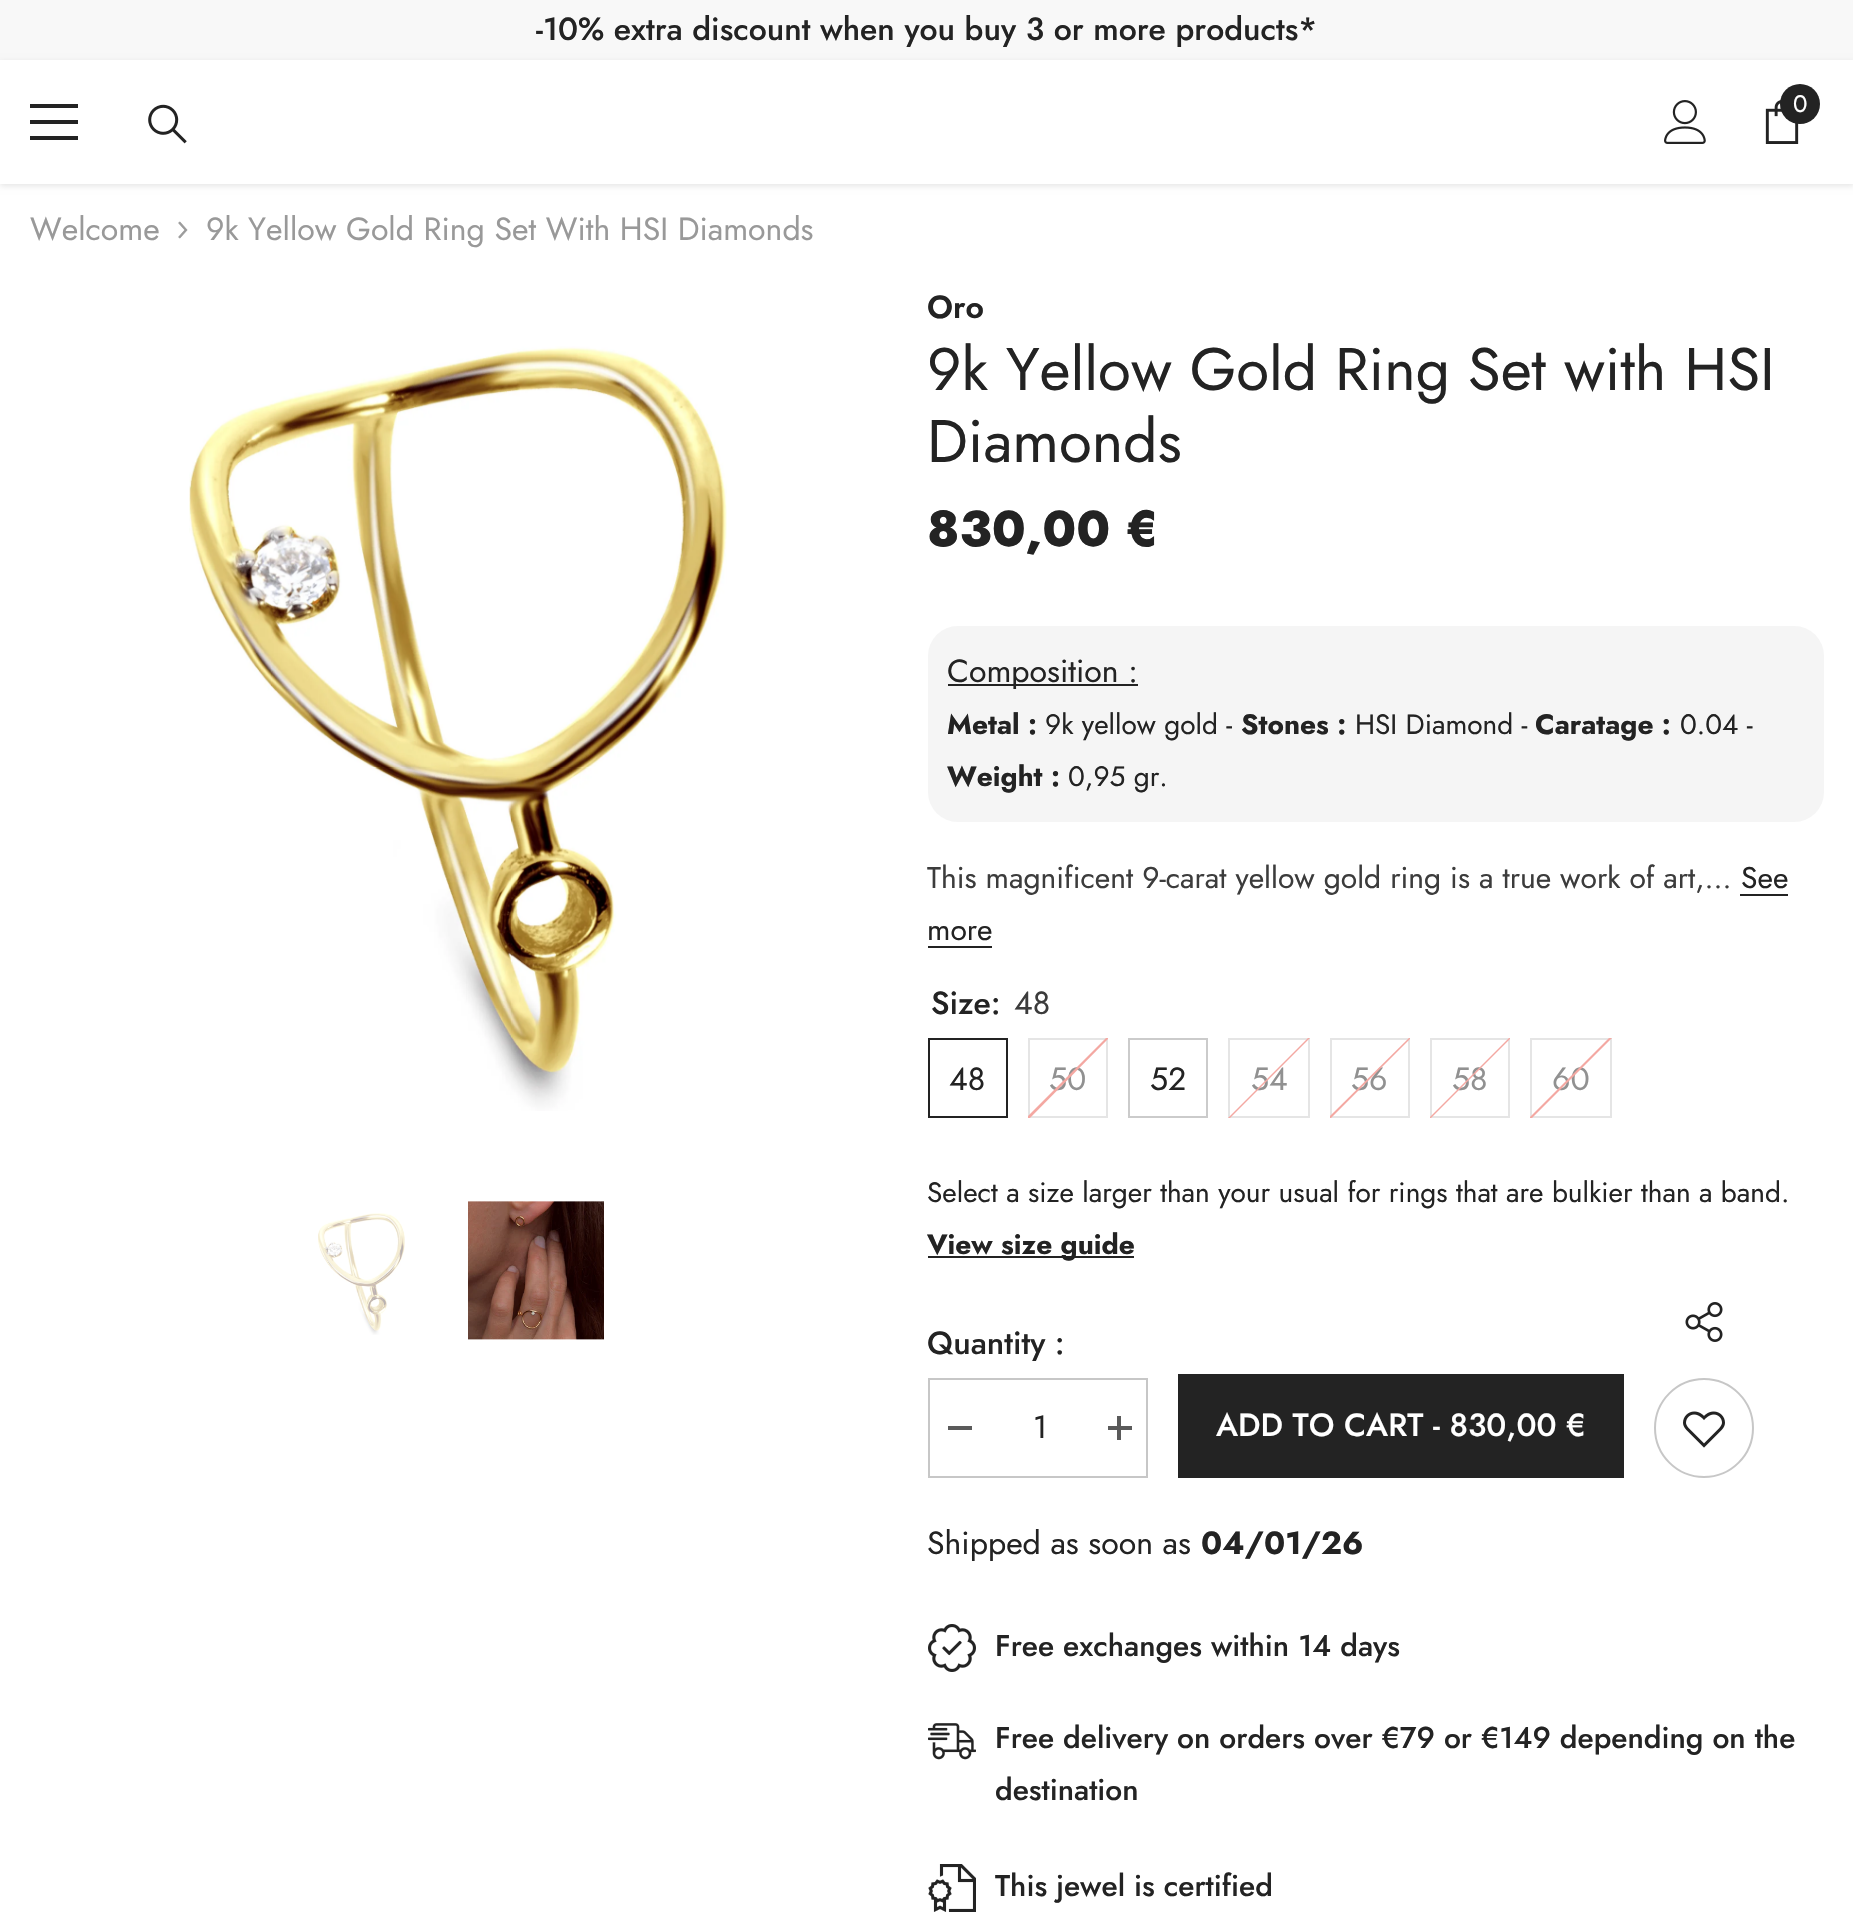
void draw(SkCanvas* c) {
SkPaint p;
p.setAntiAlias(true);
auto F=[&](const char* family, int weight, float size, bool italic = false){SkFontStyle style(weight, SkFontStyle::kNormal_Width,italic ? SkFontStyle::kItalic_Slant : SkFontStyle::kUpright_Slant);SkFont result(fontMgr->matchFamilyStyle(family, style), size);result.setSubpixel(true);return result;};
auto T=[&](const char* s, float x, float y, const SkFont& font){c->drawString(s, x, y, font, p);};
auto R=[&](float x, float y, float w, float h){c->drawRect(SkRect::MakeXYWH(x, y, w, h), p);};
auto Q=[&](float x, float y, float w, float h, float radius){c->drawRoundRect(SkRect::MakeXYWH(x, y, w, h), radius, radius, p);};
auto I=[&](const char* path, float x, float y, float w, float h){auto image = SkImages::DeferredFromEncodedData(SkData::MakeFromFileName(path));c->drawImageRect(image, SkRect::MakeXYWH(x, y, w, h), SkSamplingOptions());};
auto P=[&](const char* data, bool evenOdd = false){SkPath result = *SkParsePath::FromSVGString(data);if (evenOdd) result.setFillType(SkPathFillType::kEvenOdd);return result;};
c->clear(0xffffffff);
p.setColor(0xfff8f8f8);
R(0,0,1853,60);
auto f1 = F("Jost",500,32);
p.setColor(0xff232323);
T("-10% extra discount when you buy 3 or more products*",536,40,f1);
c->save();
c->clipPath(P("M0 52h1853v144h-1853zm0 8h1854v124h-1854z",true),true);
p.setColor(0x1a000000);
p.setMaskFilter(SkMaskFilter::MakeBlur(kNormal_SkBlurStyle, 3));
c->drawRect(SkRect::MakeXYWH(0,62,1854,124),p);
p.setMaskFilter(nullptr);
c->restore();
p.setColor(0xff232323);
R(30,120,48,4);
R(30,104,48,4);
R(30,136,48,4);
I("1.png",148,104,39,40);
I("2.png",1664,100,42,44);
I("3.png",1765,100,34,44);
c->drawCircle(1800,104,20,p);
auto f2 = F("Jost",400,24);
p.setColor(0xffffffff);
T("0",1793,112,f2);
auto f3 = F("Jost",400,32);
p.setColor(0xff999999);
T("Welcome",30,240,f3);
I("4.png",178,221,10,18);
T("9k Yellow Gold Ring Set With HSI Diamonds",206,240,f3);
I("5.png",189,346,538,765);
I("6.png",318,1213,87,122);
I("7.png",468,1201,136,139);
auto f4 = F("Jost",600,32);
p.setColor(0xff232323);
T("Oro",927,318,f4);
auto f5 = F("Jost",400,60);
T("9k Yellow Gold Ring Set with HSI",927,390,f5);
T("Diamonds",927,462,f5);
auto f6 = F("Jost",800,50);
T("830,00 €",927,546,f6);
p.setColor(0xfff5f5f5);
Q(928,626,896,196,30);
p.setColor(0xff232323);
R(948,684,190,2);
T("Composition :",947,682,f3);
auto f7 = F("Jost",700,28);
T("Metal :",947,734,f7);
auto f8 = F("Jost",400,28);
T("9k yellow gold -",1045,734,f8);
T("Stones :",1241,734,f7);
T("HSI Diamond -",1355,734,f8);
T("Caratage :",1535,734,f7);
T("0.04 -",1680,734,f8);
T("Weight :",947,786,f7);
T("0,95 gr.",1068,786,f8);
auto f9 = F("Jost",400,30);
p.setColor(0xff3c3c3c);
T("This magnificent 9-carat yellow gold ring is a true work of art,...",927,888,f9);
p.setColor(0xff232323);
T("See",1741,888,f9);
R(1740,894,48,2);
T("more",927,940,f9);
R(928,946,64,2);
T("Size:",931,1014,f1);
p.setColor(0xff3c3c3c);
T("48",1014,1014,f3);
p.setStroke(true);
p.setStrokeWidth(2);
p.setColor(0xff232323);
c->drawRect(SkRect::MakeXYWH(929,1039,78,78),p);
p.setStroke(false);
T("48",949,1090,f3);
p.setStroke(true);
p.setColor(0xffe5e5e5);
c->drawRect(SkRect::MakeXYWH(1029,1039,78,78),p);
p.setStroke(false);
p.setColor(0xff919191);
T("50",1049,1090,f3);
c->save();
c->clipRect(SkRect::MakeXYWH(1028,1038,80,80));
p.setColor(0xfff4a8a2);
c->drawPath(P("M1024 1120l86-86l1 2l-85 86z"),p);
c->restore();
p.setStroke(true);
p.setColor(0xffcbcbcb);
c->drawRect(SkRect::MakeXYWH(1129,1039,78,78),p);
p.setStroke(false);
p.setColor(0xff232323);
T("52",1150,1090,f3);
p.setStroke(true);
p.setColor(0xffe5e5e5);
c->drawRect(SkRect::MakeXYWH(1229,1039,80,78),p);
p.setStroke(false);
p.setColor(0xff919191);
T("54",1251,1090,f3);
c->save();
c->clipRect(SkRect::MakeXYWH(1228,1038,82,80));
p.setColor(0xfff4a8a2);
c->drawPath(P("M1226 1120l85-85l1 1l-85 85z"),p);
c->restore();
p.setStroke(true);
p.setColor(0xffe5e5e5);
c->drawRect(SkRect::MakeXYWH(1331,1039,78,78),p);
p.setStroke(false);
p.setColor(0xff919191);
T("56",1351,1090,f3);
c->save();
c->clipRect(SkRect::MakeXYWH(1330,1038,80,80));
p.setColor(0xfff4a8a2);
c->drawPath(P("M1326 1120l86-85l1 1l-85 85z"),p);
c->restore();
p.setStroke(true);
p.setColor(0xffe5e5e5);
c->drawRect(SkRect::MakeXYWH(1431,1039,78,78),p);
p.setStroke(false);
p.setColor(0xff919191);
T("58",1452,1090,f3);
c->save();
c->clipRect(SkRect::MakeXYWH(1430,1038,80,80));
p.setColor(0xfff4a8a2);
c->drawPath(P("M1427 1120l85-85l1 1l-85 85z"),p);
c->restore();
p.setStroke(true);
p.setColor(0xffe5e5e5);
c->drawRect(SkRect::MakeXYWH(1531,1039,80,78),p);
p.setStroke(false);
p.setColor(0xff919191);
T("60",1552,1090,f3);
c->save();
c->clipRect(SkRect::MakeXYWH(1530,1038,82,80));
p.setColor(0xfff4a8a2);
c->drawPath(P("M1527 1120l86-86l1 2l-86 86z"),p);
c->restore();
p.setColor(0xff232323);
T("Select a size larger than your usual for rings that are bulkier than a band.",927,1202,f8);
R(928,1256,206,2);
T("View size guide",927,1254,f7);
T("Quantity :",927,1354,f1);
p.setStroke(true);
p.setColor(0xffc7c7c7);
c->drawRect(SkRect::MakeXYWH(929,1379,218,98),p);
p.setStroke(false);
p.setColor(0xff5a5a5a);
R(948,1426,24,4);
p.setColor(0xff232323);
T("1",1033,1438,f3);
p.setColor(0xff5a5a5a);
R(1108,1426,24,4);
R(1117,1416,4,24);
I("8.png",1685,1302,38,40);
p.setColor(0xff232323);
R(1178,1374,446,104);
p.setColor(0xffffffff);
T("ADD TO CART - 830,00 €",1216,1436,f1);
p.setStroke(true);
p.setColor(0xffc7c7c7);
c->drawCircle(1704,1428,49,p);
I("9.png",1683,1411,42,37);
p.setStroke(false);
p.setColor(0xff232323);
T("Shipped as soon as",927,1554,f3);
auto f10 = F("Jost",700,32);
T("04/01/26",1201,1554,f10);
I("10.png",928,1624,48,48);
auto f11 = F("Jost",500,30);
T("Free exchanges within 14 days",995,1656,f11);
I("11.png",928,1723,48,37);
T("Free delivery on orders over €79 or €149 depending on the",995,1748,f11);
T("destination",995,1800,f11);
I("12.png",928,1864,48,48);
T("This jewel is certified",995,1896,f11);
}
